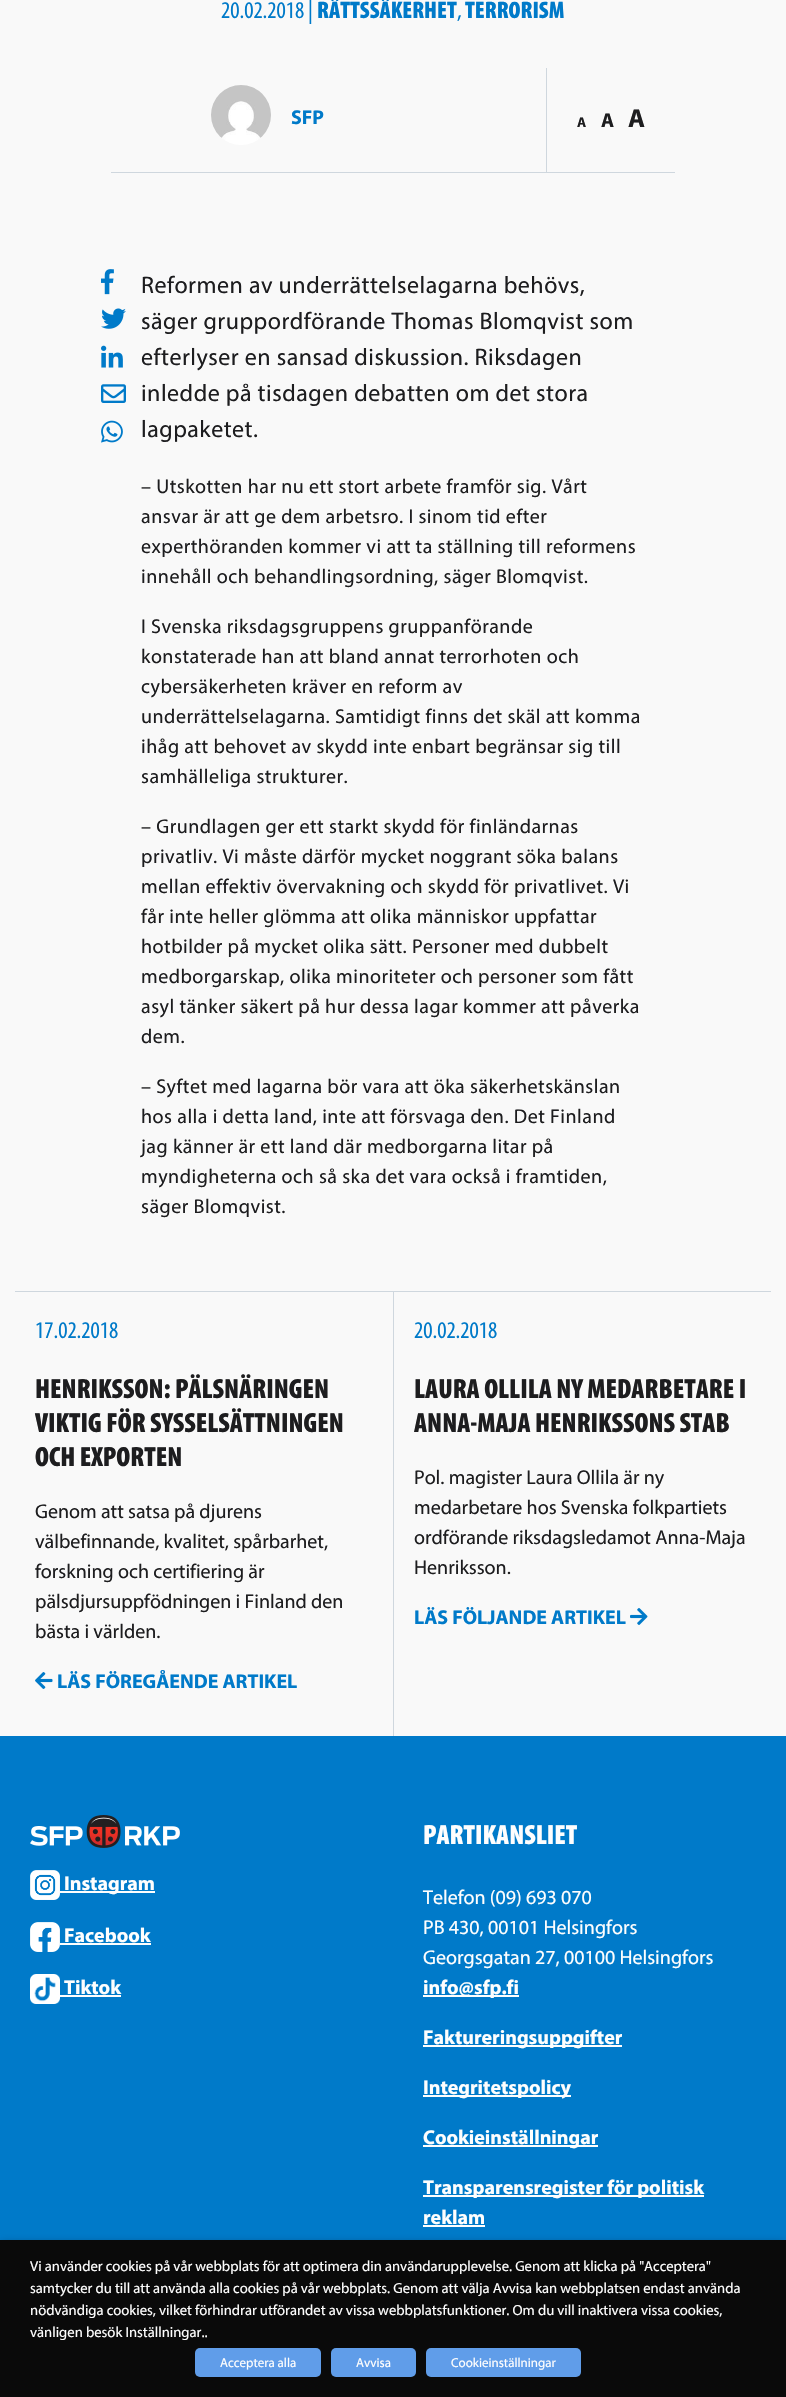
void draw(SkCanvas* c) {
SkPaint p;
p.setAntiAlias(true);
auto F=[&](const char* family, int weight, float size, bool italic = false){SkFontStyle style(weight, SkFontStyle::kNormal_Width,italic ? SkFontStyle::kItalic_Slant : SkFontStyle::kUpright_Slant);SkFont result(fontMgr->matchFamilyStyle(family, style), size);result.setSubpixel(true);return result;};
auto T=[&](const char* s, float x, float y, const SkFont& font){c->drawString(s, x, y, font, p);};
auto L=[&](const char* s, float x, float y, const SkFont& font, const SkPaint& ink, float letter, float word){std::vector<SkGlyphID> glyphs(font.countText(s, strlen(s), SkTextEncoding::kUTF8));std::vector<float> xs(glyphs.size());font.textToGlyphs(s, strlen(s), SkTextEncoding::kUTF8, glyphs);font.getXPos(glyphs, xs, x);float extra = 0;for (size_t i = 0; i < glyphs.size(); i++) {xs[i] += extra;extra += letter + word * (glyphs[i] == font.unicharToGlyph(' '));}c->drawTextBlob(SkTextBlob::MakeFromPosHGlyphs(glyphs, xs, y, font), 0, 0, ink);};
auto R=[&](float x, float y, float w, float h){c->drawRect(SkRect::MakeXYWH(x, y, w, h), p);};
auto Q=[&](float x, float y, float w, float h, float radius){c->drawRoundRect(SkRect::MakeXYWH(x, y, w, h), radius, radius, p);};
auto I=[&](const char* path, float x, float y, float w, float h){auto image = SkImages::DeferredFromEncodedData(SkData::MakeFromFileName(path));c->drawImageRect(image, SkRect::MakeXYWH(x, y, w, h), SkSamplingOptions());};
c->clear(0xfff9f9f9);
auto f1 = F("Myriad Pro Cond",400,24);
p.setColor(0xff007ac9);
T("20.02.2018 |",221,18,f1);
auto f2 = F("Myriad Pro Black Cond",900,24);
T("RÄTTSSÄKERHET",317,18,f2);
T(",",457,18,f1);
T("TERRORISM",465,18,f2);
p.setColor(0xffcfd7de);
R(111,172,564,1);
I("1.png",211,85,60,60);
auto f3 = F("Myriad",700,20);
p.setColor(0xff007ac9);
T("SFP",291,124,f3);
p.setColor(0xffcfd7de);
R(546,68,1,104);
auto f4 = F("Myriad",700,14);
p.setColor(0xff1d1d1f);
T("A",577,127,f4);
T("A",601,127,f3);
auto f5 = F("Myriad",700,26);
T("A",628,127,f5);
I("2.png",101,269,13,26);
I("3.png",101,308,25,21);
I("4.png",101,345,22,23);
I("5.png",101,384,25,19);
I("6.png",101,420,22,23);
auto f6 = F("Myriad",400,24);
L("Reformen av underrättelselagarna behövs,",141,293,f6,p,.5,0);
L("säger gruppordförande Thomas Blomqvist som",141,329,f6,p,.5,0);
L("efterlyser en sansad diskussion. Riksdagen",141,365,f6,p,.5,0);
L("inledde på tisdagen debatten om det stora",141,401,f6,p,.5,0);
L("lagpaketet.",141,437,f6,p,.5,0);
auto f7 = F("Myriad",400,20);
L("– Utskotten har nu ett stort arbete framför sig. Vårt",141,493,f7,p,.5,0);
L("ansvar är att ge dem arbetsro. I sinom tid efter",141,523,f7,p,.5,0);
L("experthöranden kommer vi att ta ställning till reformens",141,553,f7,p,.5,0);
L("innehåll och behandlingsordning, säger Blomqvist.",141,583,f7,p,.5,0);
L("I Svenska riksdagsgruppens gruppanförande",141,633,f7,p,.5,0);
L("konstaterade han att bland annat terrorhoten och",141,663,f7,p,.5,0);
L("cybersäkerheten kräver en reform av",141,693,f7,p,.5,0);
L("underrättelselagarna. Samtidigt finns det skäl att komma",141,723,f7,p,.5,0);
L("ihåg att behovet av skydd inte enbart begränsar sig till",141,753,f7,p,.5,0);
L("samhälleliga strukturer.",141,783,f7,p,.5,0);
L("– Grundlagen ger ett starkt skydd för finländarnas",141,833,f7,p,.5,0);
L("privatliv. Vi måste därför mycket noggrant söka balans",141,863,f7,p,.5,0);
L("mellan effektiv övervakning och skydd för privatlivet. Vi",141,893,f7,p,.5,0);
L("får inte heller glömma att olika människor uppfattar",141,923,f7,p,.5,0);
L("hotbilder på mycket olika sätt. Personer med dubbelt",141,953,f7,p,.5,0);
L("medborgarskap, olika minoriteter och personer som fått",141,983,f7,p,.5,0);
L("asyl tänker säkert på hur dessa lagar kommer att påverka",141,1013,f7,p,.5,0);
L("dem.",141,1043,f7,p,.5,0);
L("– Syftet med lagarna bör vara att öka säkerhetskänslan",141,1093,f7,p,.5,0);
L("hos alla i detta land, inte att försvaga den. Det Finland",141,1123,f7,p,.5,0);
L("jag känner är ett land där medborgarna litar på",141,1153,f7,p,.5,0);
L("myndigheterna och så ska det vara också i framtiden,",141,1183,f7,p,.5,0);
L("säger Blomqvist.",141,1213,f7,p,.5,0);
p.setColor(0xffcfd7de);
R(15,1291,756,1);
p.setColor(0xff007ac9);
T("17.02.2018",35,1338,f1);
auto f8 = F("Myriad Pro Black Cond",900,28);
p.setColor(0xff1d1d1f);
T("HENRIKSSON: PÄLSNÄRINGEN",35,1398,f8);
T("VIKTIG FÖR SYSSELSÄTTNINGEN",35,1432,f8);
T("OCH EXPORTEN",35,1466,f8);
T("Genom att satsa på djurens",35,1518,f7);
T("välbefinnande, kvalitet, spårbarhet,",35,1548,f7);
T("forskning och certifiering är",35,1578,f7);
T("pälsdjursuppfödningen i Finland den",35,1608,f7);
T("bästa i världen.",35,1638,f7);
I("7.png",35,1672,18,17);
p.setColor(0xff007ac9);
T("LÄS FÖREGÅENDE ARTIKEL",57,1688,f3);
p.setColor(0xffcfd7de);
R(393,1292,1,444);
p.setColor(0xff007ac9);
T("20.02.2018",414,1338,f1);
p.setColor(0xff1d1d1f);
T("LAURA OLLILA NY MEDARBETARE I",414,1398,f8);
T("ANNA-MAJA HENRIKSSONS STAB",414,1432,f8);
T("Pol. magister Laura Ollila är ny",414,1484,f7);
T("medarbetare hos Svenska folkpartiets",414,1514,f7);
T("ordförande riksdagsledamot Anna-Maja",414,1544,f7);
T("Henriksson.",414,1574,f7);
p.setColor(0xff007ac9);
T("LÄS FÖLJANDE ARTIKEL",414,1624,f3);
I("8.png",630,1608,18,17);
R(0,1736,786,504);
I("9.png",30,1815,150,33);
I("10.png",30,1870,30,30);
p.setColor(0xfffefefe);
R(60,1891,95,2);
T("Instagram",64,1890,f3);
I("11.png",30,1922,30,30);
T("Facebook",64,1942,f3);
R(60,1943,91,2);
I("12.png",30,1974,30,30);
T("Tiktok",64,1994,f3);
R(60,1995,61,2);
T("PARTIKANSLIET",423,1844,f8);
T("Telefon (09) 693 070",423,1904,f7);
T("PB 430, 00101 Helsingfors",423,1934,f7);
T("Georgsgatan 27, 00100 Helsingfors",423,1964,f7);
R(423,1995,96,2);
T("info@sfp.fi",423,1994,f3);
R(423,2045,199,2);
T("Faktureringsuppgifter",423,2044,f3);
R(423,2095,148,2);
T("Integritetspolicy",423,2094,f3);
R(423,2145,175,2);
T("Cookieinställningar",423,2144,f3);
R(423,2195,281,2);
T("Transparensregister för politisk",423,2194,f3);
T("reklam",423,2224,f3);
R(423,2225,62,2);
p.setColor(0x80000000);
p.setMaskFilter(SkMaskFilter::MakeBlur(kNormal_SkBlurStyle, 5));
c->drawRect(SkRect::MakeXYWH(0,2245,786,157),p);
p.setMaskFilter(nullptr);
p.setColor(0xff0a0a0a);
R(0,2240,786,157);
auto f9 = F("Myriad",400,14.65);
p.setColor(0xfffefefe);
T("Vi använder cookies på vår webbplats för att optimera din användarupplevelse. Genom att klicka på \"Acceptera\"",30,2271,f9);
T("samtycker du till att använda alla cookies på vår webbplats. Genom att välja Avvisa kan webbplatsen endast använda",30,2293,f9);
T("nödvändiga cookies, vilket förhindrar utförandet av vissa webbplatsfunktioner. Om du vill inaktivera vissa cookies,",30,2315,f9);
T("vänligen besök Inställningar..",30,2337,f9);
p.setColor(0xff609de9);
Q(195,2348,126,29,5);
auto f10 = F("Myriad",400,13);
p.setColor(0xfffefefe);
T("Acceptera alla",220,2367,f10);
p.setColor(0xff609de9);
Q(331,2348,85,29,5);
p.setColor(0xfffefefe);
T("Avvisa",356,2367,f10);
p.setColor(0xff609de9);
Q(426,2348,155,29,5);
p.setColor(0xfffefefe);
T("Cookieinställningar",451,2367,f10);
}
